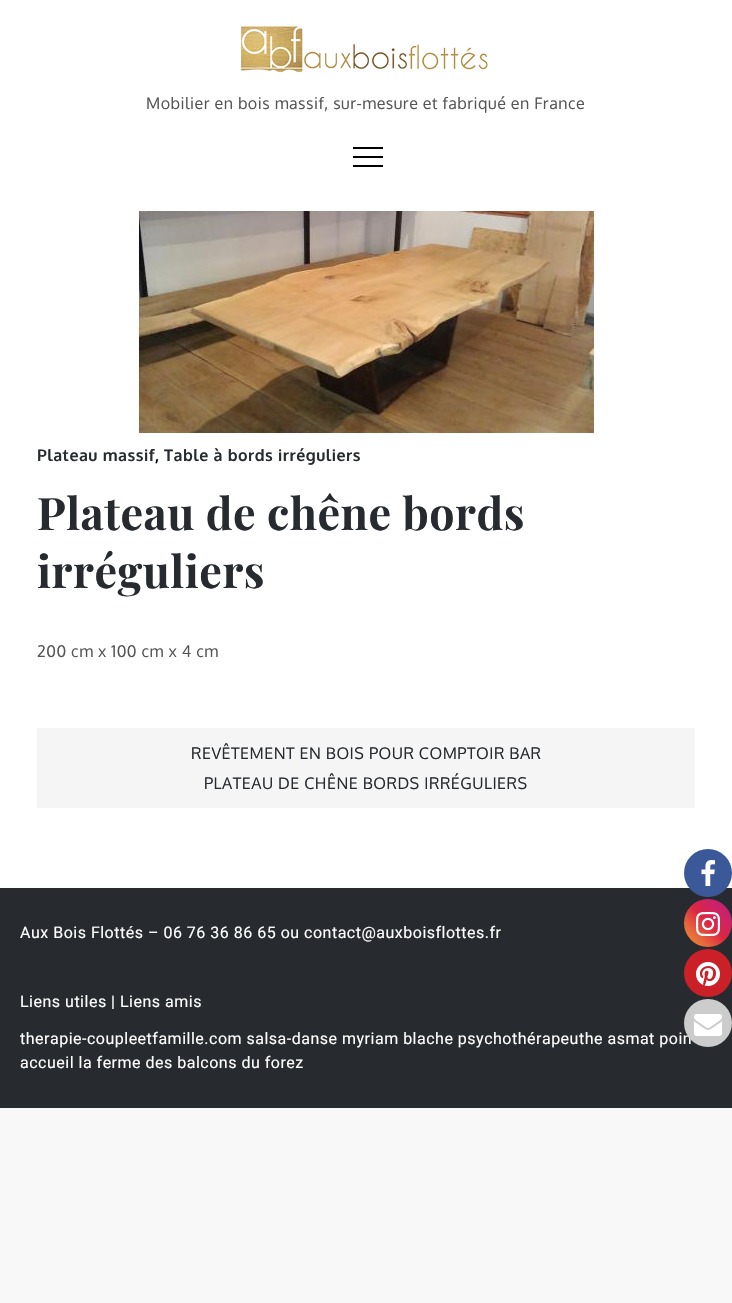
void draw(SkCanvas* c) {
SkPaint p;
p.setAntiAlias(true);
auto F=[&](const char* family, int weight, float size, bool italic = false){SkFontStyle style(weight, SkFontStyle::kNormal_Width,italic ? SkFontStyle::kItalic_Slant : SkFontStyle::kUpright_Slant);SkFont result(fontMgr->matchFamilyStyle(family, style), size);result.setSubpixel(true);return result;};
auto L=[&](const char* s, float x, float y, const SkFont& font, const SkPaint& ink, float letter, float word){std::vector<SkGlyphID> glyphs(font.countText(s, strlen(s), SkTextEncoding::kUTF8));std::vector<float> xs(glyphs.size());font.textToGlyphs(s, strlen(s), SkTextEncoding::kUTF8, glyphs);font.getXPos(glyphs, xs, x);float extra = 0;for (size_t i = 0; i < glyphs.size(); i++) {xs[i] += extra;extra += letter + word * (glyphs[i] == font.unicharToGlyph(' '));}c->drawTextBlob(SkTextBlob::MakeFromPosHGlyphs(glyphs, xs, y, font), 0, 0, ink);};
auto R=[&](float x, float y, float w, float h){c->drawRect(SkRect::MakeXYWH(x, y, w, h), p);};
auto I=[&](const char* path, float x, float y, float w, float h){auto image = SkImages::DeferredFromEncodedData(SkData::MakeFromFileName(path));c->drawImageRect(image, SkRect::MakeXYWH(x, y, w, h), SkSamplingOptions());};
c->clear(0xfff8f8f8);
p.setColor(0xffffffff);
R(0,0,732,888);
I("1.png",241,26,247,47);
auto f1 = F("Oxygen",400,16);
p.setColor(0xff555555);
L("Mobilier en bois massif, sur-mesure et fabriqué en France",146,109,f1,p,.5,0);
p.setColor(0xff000000);
R(353,147,30,2);
R(353,156,30,2);
R(353,165,30,2);
I("2.png",139,211,455,222);
auto f2 = F("Oxygen",700,16);
p.setColor(0xff272b2f);
L("Plateau massif",37,461,f2,p,.5,0);
p.setColor(0xff000000);
L(",",155,461,f2,p,.5,0);
p.setColor(0xff272b2f);
L("Table à bords irréguliers",164,461,f2,p,.5,0);
auto f3 = F("Playfair Display",700,44.75);
L("Plateau de chêne bords",37,530,f3,p,.5,0);
L("irréguliers",37,588,f3,p,.5,0);
p.setColor(0xff555555);
L("200 cm x 100 cm x 4 cm",37,657,f1,p,.5,0);
p.setColor(0xfff5f5f5);
R(37,728,658,80);
p.setColor(0xff272b2f);
L("REVÊTEMENT EN BOIS POUR COMPTOIR BAR",191,759,f1,p,.5,0);
L("PLATEAU DE CHÊNE BORDS IRRÉGULIERS",204,789,f1,p,.5,0);
R(0,888,732,220);
auto f4 = F("Roboto",400,16);
p.setColor(0xffffffff);
L("Aux Bois Flottés – 06 76 36 86 65 ou contact@auxboisflottes.fr",20,938,f4,p,.5,0);
L("Liens utiles | Liens amis",20,1007,f4,p,.5,0);
L("therapie-coupleetfamille.com salsa-danse myriam blache psychothérapeuthe asmat poin",20,1044,f4,p,.5,0);
L("accueil la ferme des balcons du forez",20,1068,f4,p,.5,0);
p.setColor(0xff3b5998);
c->drawCircle(708,873,24,p);
I("3.png",701,860,14,26);
{
const SkColor colors[] = {0xfff09433,0xffe6683c,0xffdc2743,0xffcc2366,0xffbc1888};
const float stops[] = {0,.25,.5,.75,1};
const SkPoint ends[] = {{684,947}, {732,899}};
p.setShader(SkGradientShader::MakeLinear(ends, colors, stops, 5, SkTileMode::kClamp));
p.setAlpha(255);
}
c->drawCircle(708,923,24,p);
I("4.png",696,912,24,24);
p.setShader(nullptr);
p.setColor(0xffcb2027);
c->drawCircle(708,973,24,p);
I("5.png",696,962,24,24);
p.setColor(0xffcccccc);
c->drawCircle(708,1023,24,p);
I("6.png",694,1014,28,22);
}
